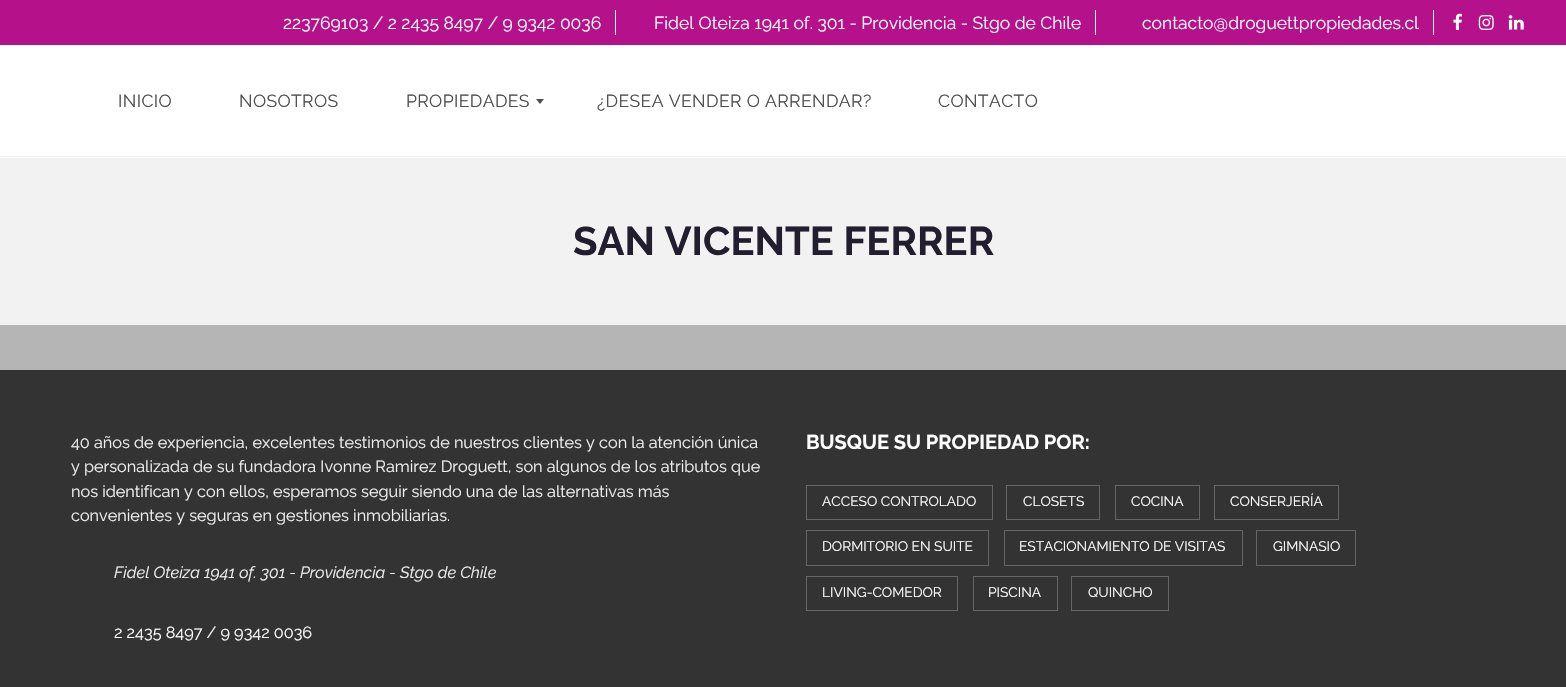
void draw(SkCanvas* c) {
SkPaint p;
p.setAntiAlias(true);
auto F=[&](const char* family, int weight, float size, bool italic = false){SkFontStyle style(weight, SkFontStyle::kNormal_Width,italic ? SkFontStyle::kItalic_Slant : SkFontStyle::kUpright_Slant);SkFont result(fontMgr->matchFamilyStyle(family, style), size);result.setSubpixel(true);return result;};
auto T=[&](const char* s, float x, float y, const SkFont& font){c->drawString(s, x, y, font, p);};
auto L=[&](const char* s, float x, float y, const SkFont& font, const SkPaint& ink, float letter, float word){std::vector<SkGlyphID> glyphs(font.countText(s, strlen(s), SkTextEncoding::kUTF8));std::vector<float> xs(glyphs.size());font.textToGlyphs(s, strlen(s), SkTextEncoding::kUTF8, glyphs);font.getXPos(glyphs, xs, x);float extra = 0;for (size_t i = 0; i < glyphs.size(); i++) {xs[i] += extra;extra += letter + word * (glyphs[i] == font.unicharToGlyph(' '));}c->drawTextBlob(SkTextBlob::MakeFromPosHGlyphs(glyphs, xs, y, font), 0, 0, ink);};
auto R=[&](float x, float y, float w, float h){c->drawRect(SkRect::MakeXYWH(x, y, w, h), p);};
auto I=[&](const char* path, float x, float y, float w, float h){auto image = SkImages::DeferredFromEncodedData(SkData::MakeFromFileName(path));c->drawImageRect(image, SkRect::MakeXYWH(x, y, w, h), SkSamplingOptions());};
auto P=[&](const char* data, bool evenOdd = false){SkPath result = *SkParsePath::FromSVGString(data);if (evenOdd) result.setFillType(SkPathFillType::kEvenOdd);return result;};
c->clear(0xffb5b5b5);
p.setColor(0xffb5118b);
R(0,0,1566,45);
auto f1 = F("Raleway",400,17.5);
p.setColor(0xffffffff);
T("223769103 / 2 2435 8497 / 9 9342 0036",283,29,f1);
p.setColor(0xfff0f0f0);
R(615,10,1,25);
p.setColor(0xffffffff);
T("Fidel Oteiza 1941 of. 301 - Providencia - Stgo de Chile",654,29,f1);
p.setColor(0xfff0f0f0);
R(1095,10,1,25);
p.setColor(0xffffffff);
T("contacto@droguettpropiedades.cl",1142,29,f1);
p.setColor(0xfff0f0f0);
R(1433,10,1,25);
I("1.png",1453,13,9,17);
I("2.png",1478,15,16,15);
I("3.png",1508,15,16,15);
p.setColor(0xffffffff);
R(0,45,1566,113);
p.setColor(0xfff0f0f0);
R(0,156,1566,1);
p.setColor(0xff4d4d4d);
L("INICIO",118,107,f1,p,.4,0);
L("NOSOTROS",239,107,f1,p,.4,0);
L("PROPIEDADES",406,107,f1,p,.4,0);
c->drawPath(P("M536 99h8l-4 5z"),p);
L("¿DESEA VENDER O ARRENDAR?",597,107,f1,p,.4,0);
L("CONTACTO",938,107,f1,p,.4,0);
p.setColor(0xfff2f2f2);
R(0,158,1566,167);
auto f2 = F("Raleway",700,40);
p.setColor(0xff231e2e);
T("SAN VICENTE FERRER",573,255,f2);
p.setColor(0xff333333);
R(0,370,1566,317);
auto f3 = F("Raleway",400,16.25);
p.setColor(0xfff0f0f0);
T("40 años de experiencia, excelentes testimonios de nuestros clientes y con la atención única",71,448,f3);
T("y personalizada de su fundadora Ivonne Ramirez Droguett, son algunos de los atributos que",71,472,f3);
T("nos identifican y con ellos, esperamos seguir siendo una de las alternativas más",71,497,f3);
T("convenientes y seguras en gestiones inmobiliarias.",71,521,f3);
auto f4 = F("Raleway",100,16.25,true);
T("Fidel Oteiza 1941 of. 301 - Providencia - Stgo de Chile",114,578,f4);
p.setColor(0xffffffff);
T("2 2435 8497 / 9 9342 0036",114,638,f3);
auto f5 = F("Raleway",700,20);
T("BUSQUE SU PROPIEDAD POR:",806,449,f5);
p.setStroke(true);
p.setStrokeWidth(1);
p.setColor(0xff666666);
c->drawRect(SkRect::MakeXYWH(806.5,485.5,186,34),p);
auto f6 = F("Raleway",400,13.75);
p.setStroke(false);
p.setColor(0xffffffff);
T("ACCESO CONTROLADO",822,506,f6);
p.setStroke(true);
p.setColor(0xff666666);
c->drawRect(SkRect::MakeXYWH(1006.5,485.5,93,34),p);
p.setStroke(false);
p.setColor(0xffffffff);
T("CLOSETS",1023,506,f6);
p.setStroke(true);
p.setColor(0xff666666);
c->drawRect(SkRect::MakeXYWH(1115.5,485.5,84,34),p);
p.setStroke(false);
p.setColor(0xffffffff);
T("COCINA",1131,506,f6);
p.setStroke(true);
p.setColor(0xff666666);
c->drawRect(SkRect::MakeXYWH(1214.5,485.5,124,34),p);
p.setStroke(false);
p.setColor(0xffffffff);
T("CONSERJERÍA",1230,506,f6);
p.setStroke(true);
p.setColor(0xff666666);
c->drawRect(SkRect::MakeXYWH(806.5,530.5,182,35),p);
p.setStroke(false);
p.setColor(0xffffffff);
T("DORMITORIO EN SUITE",822,551,f6);
p.setStroke(true);
p.setColor(0xff666666);
c->drawRect(SkRect::MakeXYWH(1004.5,530.5,238,35),p);
p.setStroke(false);
p.setColor(0xffffffff);
T("ESTACIONAMIENTO DE VISITAS",1019,551,f6);
p.setStroke(true);
p.setColor(0xff666666);
c->drawRect(SkRect::MakeXYWH(1256.5,530.5,99,35),p);
p.setStroke(false);
p.setColor(0xffffffff);
T("GIMNASIO",1273,551,f6);
p.setStroke(true);
p.setColor(0xff666666);
c->drawRect(SkRect::MakeXYWH(806.5,576.5,151,34),p);
p.setStroke(false);
p.setColor(0xffffffff);
T("LIVING-COMEDOR",822,597,f6);
p.setStroke(true);
p.setColor(0xff666666);
c->drawRect(SkRect::MakeXYWH(973.5,576.5,84,34),p);
p.setStroke(false);
p.setColor(0xffffffff);
T("PISCINA",988,597,f6);
p.setStroke(true);
p.setColor(0xff666666);
c->drawRect(SkRect::MakeXYWH(1071.5,576.5,97,34),p);
p.setStroke(false);
p.setColor(0xffffffff);
T("QUINCHO",1088,597,f6);
}
